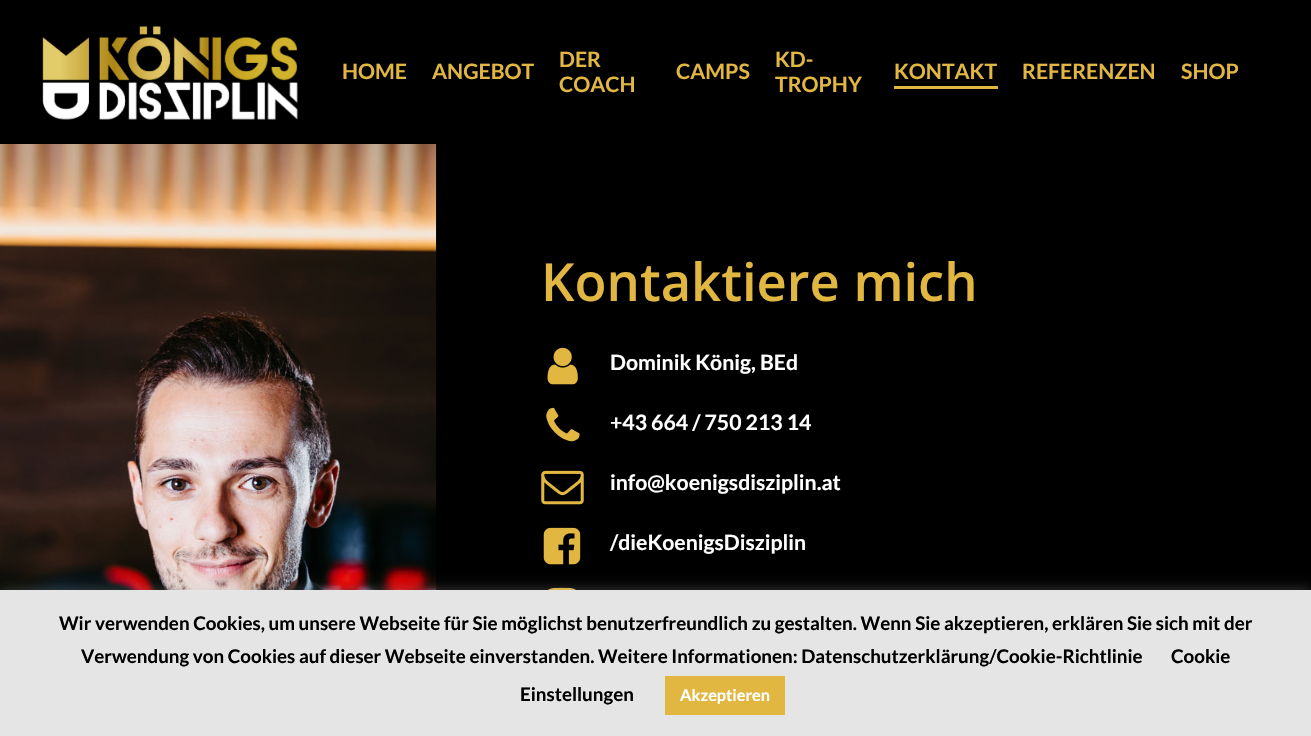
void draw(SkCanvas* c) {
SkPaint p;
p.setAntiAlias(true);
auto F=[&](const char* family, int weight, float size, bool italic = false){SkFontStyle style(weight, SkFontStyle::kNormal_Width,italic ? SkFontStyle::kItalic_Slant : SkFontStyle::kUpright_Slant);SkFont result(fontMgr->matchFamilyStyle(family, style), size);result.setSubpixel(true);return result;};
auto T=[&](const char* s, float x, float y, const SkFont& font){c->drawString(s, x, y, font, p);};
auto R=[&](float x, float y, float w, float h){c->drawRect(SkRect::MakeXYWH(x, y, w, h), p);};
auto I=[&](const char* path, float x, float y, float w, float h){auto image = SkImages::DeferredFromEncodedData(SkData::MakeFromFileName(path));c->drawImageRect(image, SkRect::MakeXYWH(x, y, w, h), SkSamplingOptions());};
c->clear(0xff000000);
I("1.png",42,26,256,94);
auto f1 = F("Lato",700,21.25);
p.setColor(0xffe2b741);
T("HOME",342,79,f1);
T("ANGEBOT",432,79,f1);
T("DER",559,67,f1);
T("COACH",559,92,f1);
T("CAMPS",676,79,f1);
T("KD-",775,67,f1);
T("TROPHY",775,92,f1);
T("KONTAKT",894,79,f1);
R(894,86,104,3);
T("REFERENZEN",1022,79,f1);
T("SHOP",1181,79,f1);
I("2.png",0,144,437,446);
auto f2 = F("Open Sans",600,52.5);
T("Kontaktiere mich",541,301,f2);
I("3.png",547,347,31,38);
p.setColor(0xffffffff);
T("Dominik König, BEd",610,370,f1);
I("4.png",546,407,34,35);
T("+43 664 / 750 213 14",610,430,f1);
I("5.png",541,470,43,35);
T("info@koenigsdisziplin.at",610,490,f1);
I("6.png",543,527,38,38);
T("/dieKoenigsDisziplin",610,550,f1);
I("7.png",548,587,28,3);
p.setColor(0x4dacabab);
p.setMaskFilter(SkMaskFilter::MakeBlur(kNormal_SkBlurStyle, 6));
c->drawRect(SkRect::MakeXYWH(0,589,1311,146),p);
p.setMaskFilter(nullptr);
p.setColor(0xffe5e5e5);
R(0,590,1311,146);
auto f3 = F("Lato",700,18.75);
p.setColor(0xff000000);
T("Wir verwenden Cookies, um unsere Webseite für Sie möglichst benutzerfreundlich zu gestalten. Wenn Sie akzeptieren, erklären Sie sich mit der",59,630,f3);
T("Verwendung von Cookies auf dieser Webseite einverstanden. Weitere Informationen: Datenschutzerklärung/Cookie-Richtlinie",81,663,f3);
T("Cookie",1171,663,f3);
T("Einstellungen",520,701,f3);
p.setColor(0xffe2b741);
R(665,676,120,39);
auto f4 = F("Lato",700,16.25);
p.setColor(0xffffffff);
T("Akzeptieren",680,701,f4);
}
